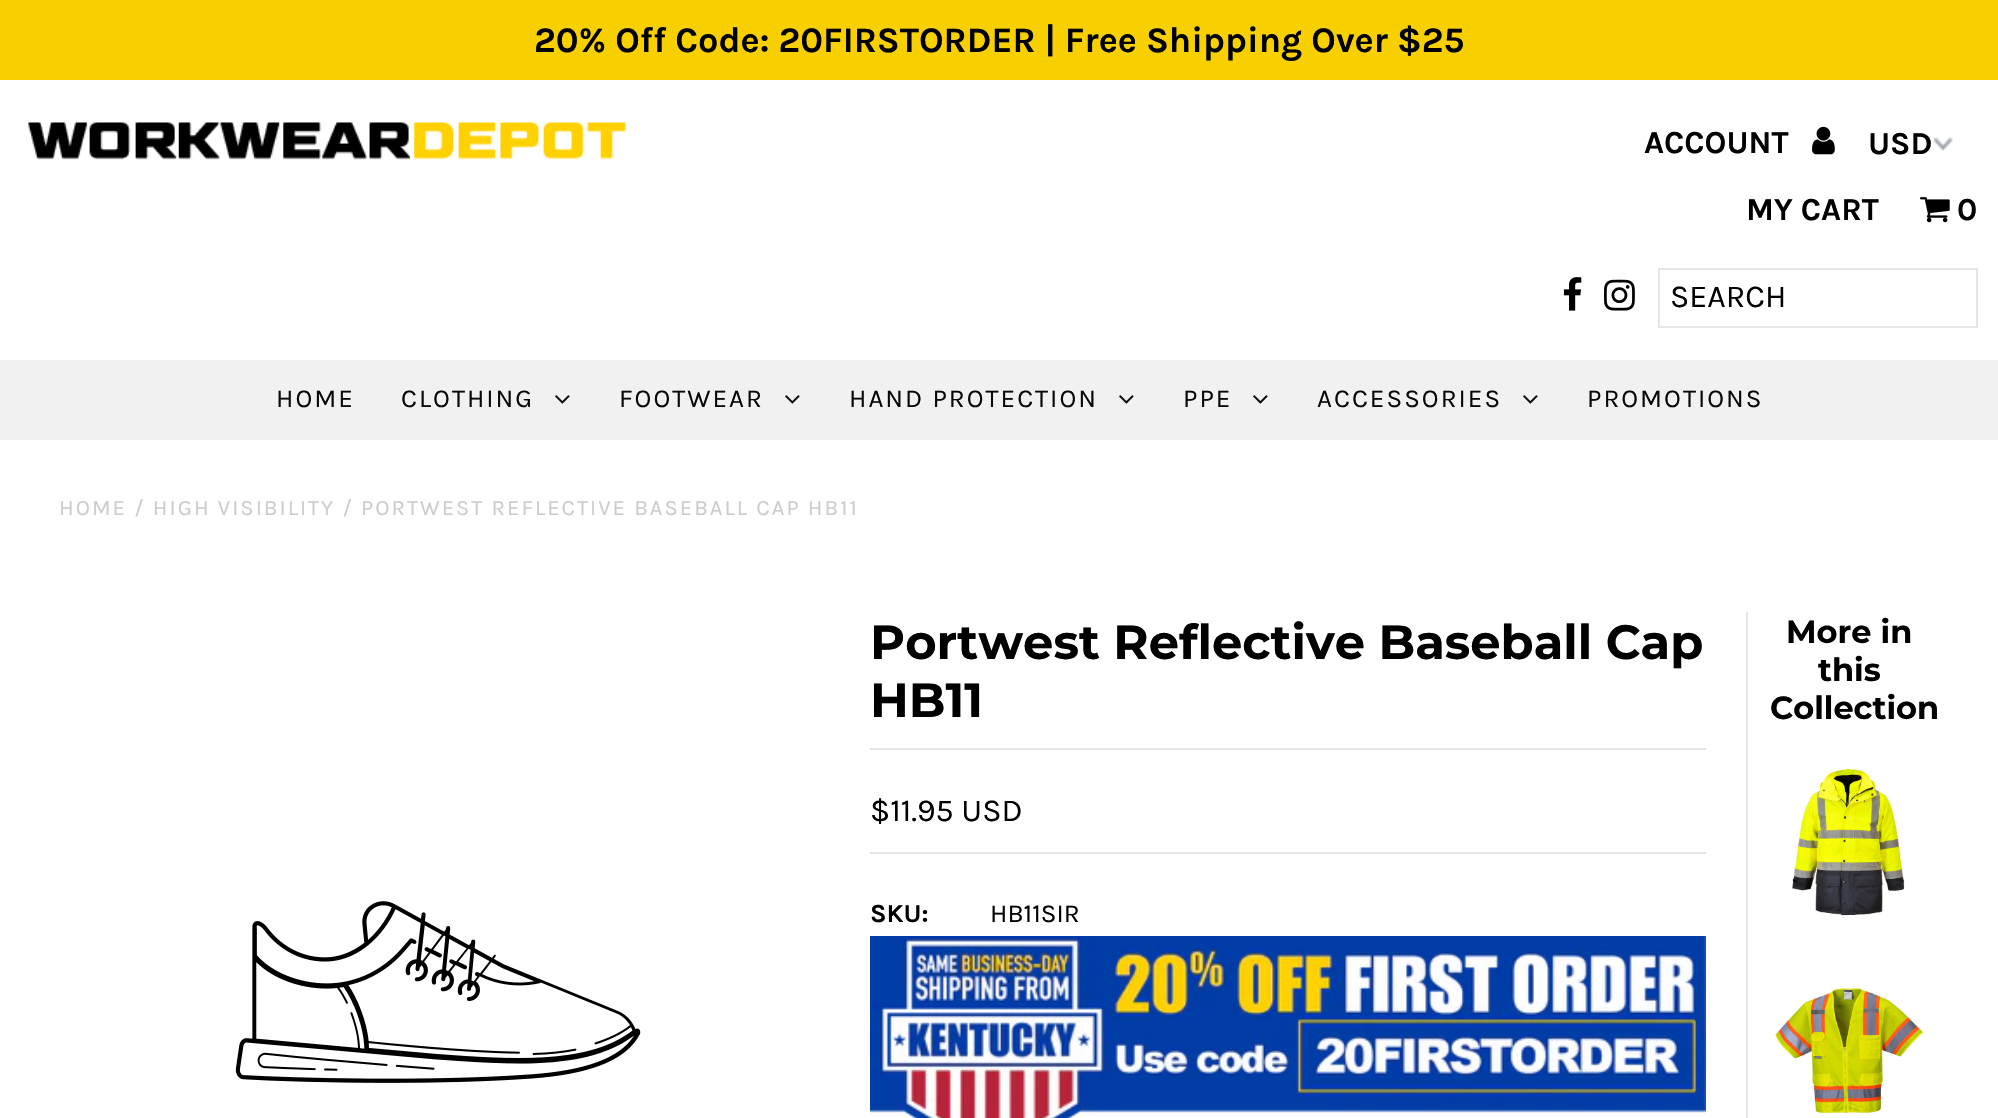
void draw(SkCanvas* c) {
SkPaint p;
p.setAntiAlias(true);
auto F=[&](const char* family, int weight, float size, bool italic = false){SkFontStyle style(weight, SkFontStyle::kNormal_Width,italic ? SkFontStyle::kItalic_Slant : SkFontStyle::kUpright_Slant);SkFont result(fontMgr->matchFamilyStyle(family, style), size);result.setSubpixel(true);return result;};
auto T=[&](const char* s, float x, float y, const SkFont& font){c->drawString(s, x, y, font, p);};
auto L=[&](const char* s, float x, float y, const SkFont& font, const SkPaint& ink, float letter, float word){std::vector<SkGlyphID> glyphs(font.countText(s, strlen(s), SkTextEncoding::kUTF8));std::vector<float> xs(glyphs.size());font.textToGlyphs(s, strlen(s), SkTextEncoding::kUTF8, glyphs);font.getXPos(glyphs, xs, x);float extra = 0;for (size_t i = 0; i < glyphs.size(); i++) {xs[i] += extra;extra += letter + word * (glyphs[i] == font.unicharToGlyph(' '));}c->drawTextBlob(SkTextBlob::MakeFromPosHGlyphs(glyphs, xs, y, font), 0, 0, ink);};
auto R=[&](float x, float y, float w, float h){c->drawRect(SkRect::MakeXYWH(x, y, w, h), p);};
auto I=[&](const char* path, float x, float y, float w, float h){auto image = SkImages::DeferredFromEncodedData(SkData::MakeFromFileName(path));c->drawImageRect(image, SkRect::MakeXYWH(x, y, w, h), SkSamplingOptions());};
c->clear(0xffffffff);
p.setColor(0xfff8d000);
R(0,0,1998,80);
auto f1 = F("Karla",700,36);
p.setColor(0xff000000);
T("20% Off Code: 20FIRSTORDER | Free Shipping Over $25",534,52,f1);
I("1.png",28,122,599,38);
auto f2 = F("Karla",700,32);
T("ACCOUNT",1644,153,f2);
I("2.png",1812,126,23,29);
I("3.png",1933,137,20,14);
T("USD",1868,154,f2);
T("MY CART",1746,220,f2);
I("4.png",1920,197,30,26);
T("0",1957,220,f2);
I("5.png",1563,277,19,34);
I("6.png",1604,279,31,32);
p.setStroke(true);
p.setStrokeWidth(2);
p.setColor(0xffe5e5e5);
c->drawRect(SkRect::MakeXYWH(1659,269,318,58),p);
auto f3 = F("Karla",400,32);
p.setStroke(false);
p.setColor(0xff000000);
T("SEARCH",1670,307,f3);
p.setColor(0xfff2f1f1);
R(0,360,1998,80);
auto f4 = F("Karla",400,26);
p.setColor(0xff080808);
L("HOME",276,407,f4,p,2,0);
L("CLOTHING",401,407,f4,p,2,0);
I("7.png",555,395,15,9);
L("FOOTWEAR",619,407,f4,p,2,0);
I("7.png",785,395,15,9);
L("HAND PROTECTION",849,407,f4,p,2,0);
I("7.png",1119,395,15,9);
L("PPE",1183,407,f4,p,2,0);
I("7.png",1253,395,15,9);
L("ACCESSORIES",1317,407,f4,p,2,0);
I("7.png",1523,395,15,9);
L("PROMOTIONS",1587,407,f4,p,2,0);
auto f5 = F("Karla",400,22);
p.setColor(0xffcccccc);
L("HOME / HIGH VISIBILITY / PORTWEST REFLECTIVE BASEBALL CAP HB11",59,515,f5,p,2,0);
p.setColor(0xffe5e5e5);
R(1746,612,2,506);
auto f6 = F("Montserrat",700,48);
p.setColor(0xff000000);
T("Portwest Reflective Baseball Cap",870,659,f6);
T("HB11",870,717,f6);
p.setColor(0xffe5e5e5);
R(870,748,836,2);
R(870,852,836,2);
p.setColor(0xff000000);
T("$11.95 USD",870,821,f3);
auto f7 = F("Karla",700,26);
T("SKU:",870,922,f7);
T("HB11SIR",990,922,f4);
I("8.png",870,936,836,182);
auto f8 = F("Montserrat",700,32);
T("More in",1786,643,f8);
T("this",1818,681,f8);
T("Collection",1770,719,f8);
I("9.png",1792,768,113,148);
I("10.png",1775,988,149,127);
I("11.png",235,901,406,182);
}
